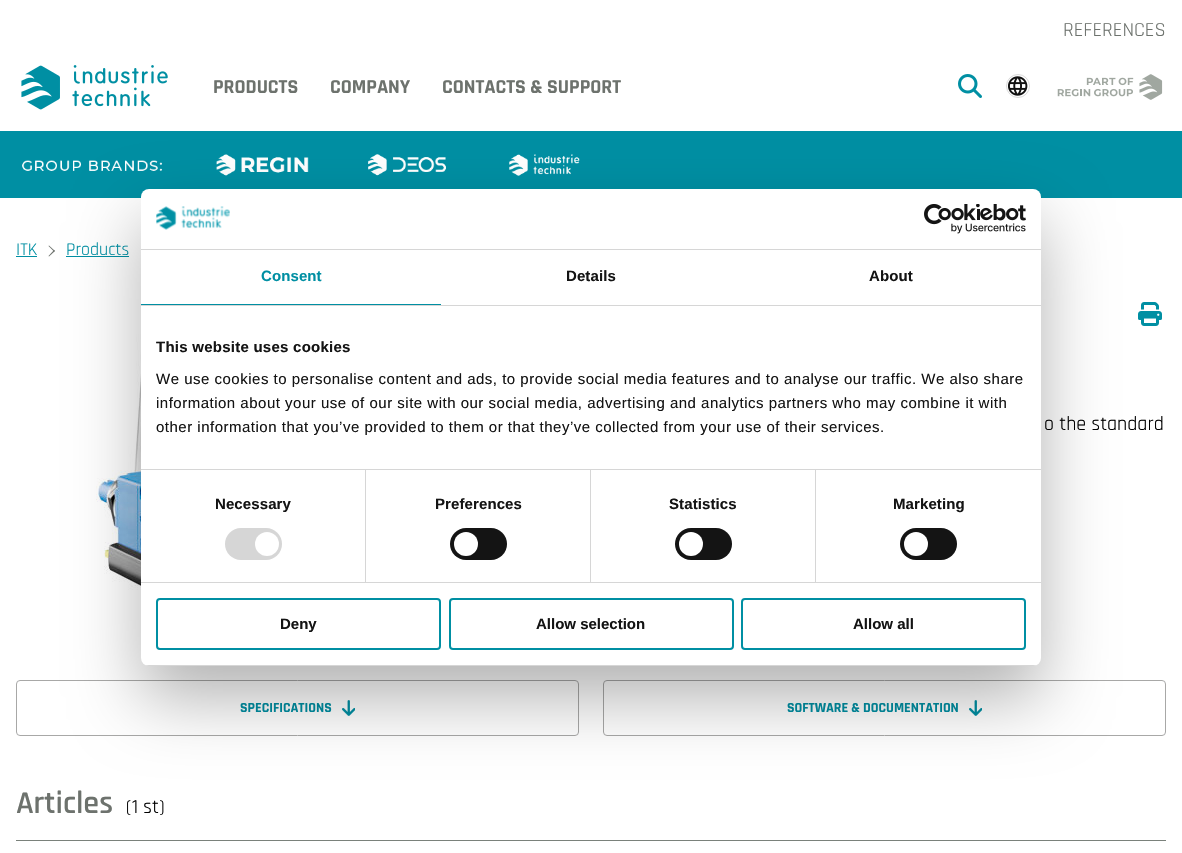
void draw(SkCanvas* c) {
SkPaint p;
p.setAntiAlias(true);
auto F=[&](const char* family, int weight, float size, bool italic = false){SkFontStyle style(weight, SkFontStyle::kNormal_Width,italic ? SkFontStyle::kItalic_Slant : SkFontStyle::kUpright_Slant);SkFont result(fontMgr->matchFamilyStyle(family, style), size);result.setSubpixel(true);return result;};
auto T=[&](const char* s, float x, float y, const SkFont& font){c->drawString(s, x, y, font, p);};
auto L=[&](const char* s, float x, float y, const SkFont& font, const SkPaint& ink, float letter, float word){std::vector<SkGlyphID> glyphs(font.countText(s, strlen(s), SkTextEncoding::kUTF8));std::vector<float> xs(glyphs.size());font.textToGlyphs(s, strlen(s), SkTextEncoding::kUTF8, glyphs);font.getXPos(glyphs, xs, x);float extra = 0;for (size_t i = 0; i < glyphs.size(); i++) {xs[i] += extra;extra += letter + word * (glyphs[i] == font.unicharToGlyph(' '));}c->drawTextBlob(SkTextBlob::MakeFromPosHGlyphs(glyphs, xs, y, font), 0, 0, ink);};
auto R=[&](float x, float y, float w, float h){c->drawRect(SkRect::MakeXYWH(x, y, w, h), p);};
auto Q=[&](float x, float y, float w, float h, float radius){c->drawRoundRect(SkRect::MakeXYWH(x, y, w, h), radius, radius, p);};
auto I=[&](const char* path, float x, float y, float w, float h){auto image = SkImages::DeferredFromEncodedData(SkData::MakeFromFileName(path));c->drawImageRect(image, SkRect::MakeXYWH(x, y, w, h), SkSamplingOptions());};
auto P=[&](const char* data, bool evenOdd = false){SkPath result = *SkParsePath::FromSVGString(data);if (evenOdd) result.setFillType(SkPathFillType::kEvenOdd);return result;};
c->clear(0xffffffff);
auto f1 = F("Rajdhani",400,20);
p.setColor(0xff6d726d);
T("REFERENCES",1063,36,f1);
I("1.png",21,65,147,45);
auto f2 = F("Rajdhani",700,20);
T("PRODUCTS",213,93,f2);
T("COMPANY",330,93,f2);
T("CONTACTS & SUPPORT",442,93,f2);
I("2.png",958,74,24,24);
I("3.png",1008,76,20,20);
p.setStroke(true);
p.setStrokeWidth(1);
p.setColor(0xffd9d9d9);
c->drawCircle(1018,86,11.5,p);
I("4.png",1057,74,106,26);
p.setStroke(false);
p.setColor(0xff008fa3);
R(0,131,1182,67);
I("5.png",22,154,558,22);
auto f3 = F("Rajdhani",400,18);
T("ITK",16,255,f3);
R(16,256,21,1);
p.setColor(0xff6d726d);
c->drawPath(P("M48.5 246l.5-.5l6 5.5l-1 .5z"),p);
c->drawPath(P("M48.5 256l5.5-6l1 1l-6 5.5z"),p);
p.setColor(0xff008fa3);
T("Products",66,255,f3);
R(66,256,63,1);
I("6.png",96,311,45,310);
I("7.png",1138,302,24,24);
p.setColor(0xff000000);
T("o the standard",1044,430,f1);
p.setStroke(true);
p.setColor(0xffa8a8a7);
c->drawRoundRect(SkRect::MakeXYWH(16.5,680.5,562,55),3.5,3.5,p);
auto f4 = F("Rajdhani",700,14);
p.setStroke(false);
p.setColor(0xff008fa3);
T("SPECIFICATIONS",240,712,f4);
I("8.png",342,700,13,16);
p.setStroke(true);
p.setColor(0xffa8a8a7);
c->drawRoundRect(SkRect::MakeXYWH(603.5,680.5,562,55),3.5,3.5,p);
p.setStroke(false);
p.setColor(0xff008fa3);
T("SOFTWARE & DOCUMENTATION",787,712,f4);
I("8.png",969,700,13,16);
auto f5 = F("Rajdhani",600,32);
p.setColor(0xff6d726d);
T("Articles",16,813,f5);
p.setColor(0xff000000);
T("(1 st)",126,813,f1);
p.setColor(0xff7a817b);
R(16,840,1150,1);
p.setColor(0x4d000000);
p.setMaskFilter(SkMaskFilter::MakeBlur(kNormal_SkBlurStyle, 34));
c->drawRoundRect(SkRect::MakeXYWH(141,221,900,477),8,8,p);
p.setMaskFilter(nullptr);
p.setColor(0xffffffff);
Q(141,189,900,477,8);
p.setColor(0xffd6d6d6);
R(141,249,900,1);
I("9.png",156,206,74,24);
I("10.png",924,204,102,30);
R(141,305,900,1);
p.setColor(0xff008fa3);
R(141,304,300,1);
auto f6 = F("Liberation Sans",700,15);
L("Consent",261,281,f6,p,.1,0);
p.setColor(0xff141414);
L("Details",566,281,f6,p,.1,0);
L("About",869,281,f6,p,.1,0);
p.setColor(0xffd6d6d6);
R(141,469,900,1);
p.setColor(0xff141414);
L("This website uses cookies",156,352,f6,p,.25,0);
auto f7 = F("Liberation Sans",400,15);
L("We use cookies to personalise content and ads, to provide social media features and to analyse our traffic. We also share",156,384,f7,p,.5,0);
L("information about your use of our site with our social media, advertising and analytics partners who may combine it with",156,408,f7,p,.5,0);
L("other information that you’ve provided to them or that they’ve collected from your use of their services.",156,432,f7,p,.5,0);
p.setColor(0xffd6d6d6);
R(141,582,900,1);
R(365,470,1,112);
p.setColor(0xff141414);
L("Necessary",215,509,f6,p,.1,0);
p.setColor(0xffd6d6d6);
Q(225,528,57,32,16);
p.setColor(0xffffffff);
c->drawCircle(267,544,12,p);
p.setColor(0xffd6d6d6);
R(590,470,1,112);
p.setColor(0xff141414);
L("Preferences",435,509,f6,p,.1,0);
Q(450,528,57,32,16);
p.setColor(0xffffffff);
c->drawCircle(466,544,12,p);
p.setColor(0xffd6d6d6);
R(815,470,1,112);
p.setColor(0xff141414);
L("Statistics",669,509,f6,p,.1,0);
Q(675,528,57,32,16);
p.setColor(0xffffffff);
c->drawCircle(691,544,12,p);
p.setColor(0xff141414);
L("Marketing",893,509,f6,p,.1,0);
Q(900,528,57,32,16);
p.setColor(0xffffffff);
c->drawCircle(916,544,12,p);
c->save();
c->clipPath(P("M149 189h884c4.5 0 8 3.5 8 8v461c0 4.5-3.5 8-8 8h-884c-4.5 0-8-3.5-8-8v-461c0-4.5 3.5-8 8-8z"),true);
p.setColor(0xffd6d6d6);
R(141,665,900,1);
c->restore();
p.setStroke(true);
p.setStrokeWidth(2);
p.setColor(0xff008fa3);
c->drawRoundRect(SkRect::MakeXYWH(157,599,283,50),3,3,p);
p.setStroke(false);
p.setColor(0xff141414);
T("Deny",280,629,f6);
p.setStroke(true);
p.setColor(0xff008fa3);
c->drawRoundRect(SkRect::MakeXYWH(450,599,283,50),3,3,p);
p.setStroke(false);
p.setColor(0xff141414);
T("Allow selection",536,629,f6);
p.setStroke(true);
p.setColor(0xff008fa3);
c->drawRoundRect(SkRect::MakeXYWH(742,599,283,50),3,3,p);
p.setStroke(false);
p.setColor(0xff141414);
T("Allow all",853,629,f6);
}
